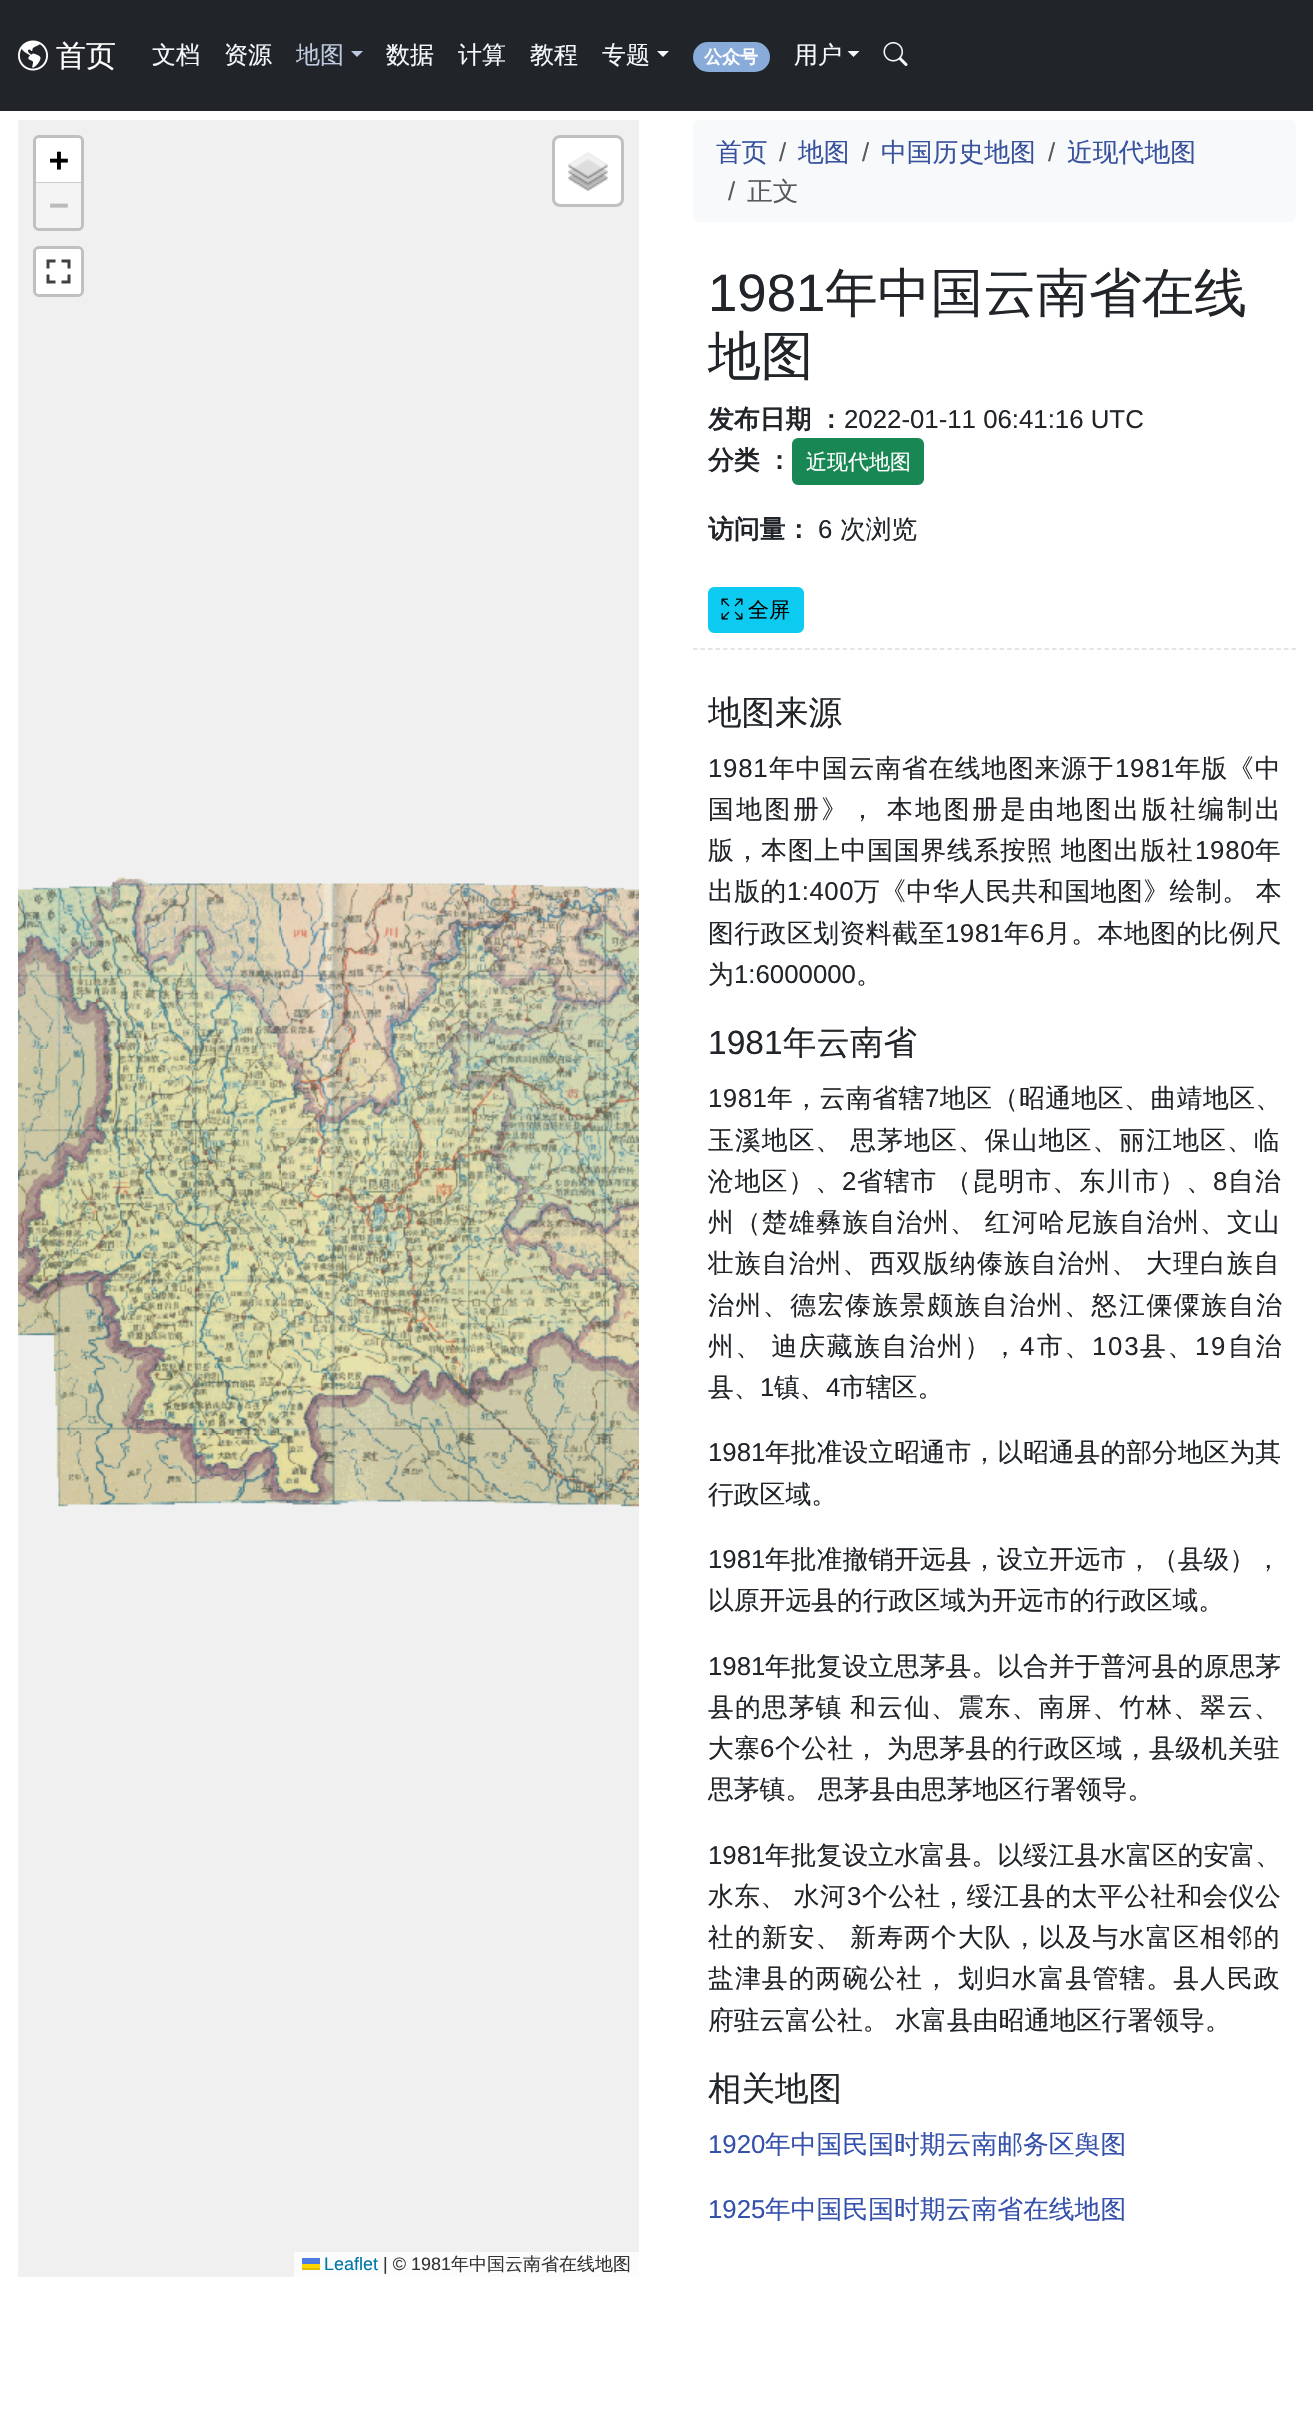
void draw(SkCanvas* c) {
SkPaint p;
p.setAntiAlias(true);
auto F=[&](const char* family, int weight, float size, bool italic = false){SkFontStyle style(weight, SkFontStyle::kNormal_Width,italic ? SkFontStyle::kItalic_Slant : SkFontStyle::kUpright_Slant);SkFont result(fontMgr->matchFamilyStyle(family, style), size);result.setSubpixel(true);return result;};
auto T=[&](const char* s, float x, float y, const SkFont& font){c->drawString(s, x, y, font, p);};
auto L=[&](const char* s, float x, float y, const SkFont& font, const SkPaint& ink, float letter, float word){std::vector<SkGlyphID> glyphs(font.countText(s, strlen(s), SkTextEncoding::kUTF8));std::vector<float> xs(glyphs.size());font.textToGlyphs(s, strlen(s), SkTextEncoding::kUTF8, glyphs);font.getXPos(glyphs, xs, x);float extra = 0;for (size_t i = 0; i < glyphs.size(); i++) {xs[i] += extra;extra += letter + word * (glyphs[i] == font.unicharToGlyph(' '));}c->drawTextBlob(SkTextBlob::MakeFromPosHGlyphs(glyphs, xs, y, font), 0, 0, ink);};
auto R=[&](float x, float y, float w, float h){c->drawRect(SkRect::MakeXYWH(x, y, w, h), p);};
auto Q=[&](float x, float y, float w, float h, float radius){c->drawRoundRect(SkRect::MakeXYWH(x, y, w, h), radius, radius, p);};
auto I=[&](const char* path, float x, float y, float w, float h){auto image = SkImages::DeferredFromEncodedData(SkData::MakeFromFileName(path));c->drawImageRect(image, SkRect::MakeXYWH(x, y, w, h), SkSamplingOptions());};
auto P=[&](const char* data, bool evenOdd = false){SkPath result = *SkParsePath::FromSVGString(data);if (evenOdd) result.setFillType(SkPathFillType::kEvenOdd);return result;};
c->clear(0xffffffff);
p.setColor(0xff212529);
R(0,0,1313,111);
I("1.png",18,40,30,31);
auto f1 = F("WenQuanYi Zen Hei",500,30);
p.setColor(0xffffffff);
T("首页",56,66,f1);
auto f2 = F("WenQuanYi Zen Hei",500,24);
p.setColor(0xfff3fbff);
T("文档",152,63,f2);
T("资源",224,63,f2);
p.setColor(0xffbfc9df);
T("地图",296,63,f2);
c->drawPath(P("M351 51h12l-6 6z"),p);
p.setColor(0xfff3fbff);
T("数据",386,63,f2);
T("计算",458,63,f2);
T("教程",530,63,f2);
T("专题",602,63,f2);
c->drawPath(P("M657 51h12l-6 6z"),p);
p.setColor(0xff88abda);
Q(693,42,77,30,15);
auto f3 = F("WenQuanYi Zen Hei",700,18);
p.setColor(0xffffffff);
T("公众号",704,63,f3);
p.setColor(0xfff3fbff);
T("用户",794,63,f2);
c->drawPath(P("M847.5 51h12l-6 6z"),p);
I("2.png",883,42,25,24);
p.setColor(0xfff0f0f0);
R(18,120,621,2157);
p.setStroke(true);
p.setStrokeWidth(3);
p.setColor(0xffc0c0c0);
c->drawRoundRect(SkRect::MakeXYWH(34.5,136.5,48,93),4.5,4.5,p);
p.setStroke(false);
p.setColor(0xffffffff);
c->drawPath(P("M39 138h39c1.5 0 3 1.5 3 3v42h-45v-42c0-1.5 1.5-3 3-3z"),p);
p.setColor(0xffcccccc);
R(36,182,45,1);
auto f4 = F("DejaVu Sans Mono",700,33);
p.setColor(0xff000000);
T("+",49,171,f4);
p.setColor(0xfff4f4f4);
c->drawPath(P("M36 183h45v42c0 1.5-1.5 3-3 3h-39c-1.5 0-3-1.5-3-3z"),p);
p.setColor(0xffbbbbbb);
T("−",49,216,f4);
p.setStroke(true);
p.setColor(0xffc0c0c0);
c->drawRoundRect(SkRect::MakeXYWH(34.5,247.5,48,48),4.5,4.5,p);
p.setStroke(false);
p.setColor(0xffffffff);
Q(36,249,45,45,3);
I("3.png",46,259,25,25);
Q(555,138,66,66,5);
p.setStroke(true);
p.setColor(0x33000000);
c->drawRoundRect(SkRect::MakeXYWH(553.5,136.5,69,69),6.5,6.5,p);
I("4.png",568,152,40,39);
p.setStroke(false);
p.setColor(0xfffcfcfc);
R(294,2252,345,25);
auto f5 = F("Liberation Sans",400,18);
p.setColor(0xff0078a8);
T("Leaflet",324,2270,f5);
p.setColor(0xff4c7be1);
R(302,2258,18,6);
p.setColor(0xffffd500);
R(302,2264,18,4);
p.setColor(0xffe0bc00);
R(302,2268,18,2);
p.setColor(0xff333333);
T("| © 1981",383,2270,f5);
auto f6 = F("WenQuanYi Zen Hei",500,18);
T("年中国云南省在线地图",451,2270,f6);
I("5.png",18,877,263,172);
I("6.png",281,883,358,166);
I("7.png",18,1049,263,384);
I("8.png",281,1049,358,384);
I("9.png",56,1433,225,74);
I("10.png",281,1433,358,74);
p.setColor(0xfff8f9fa);
Q(693,120,603,102,6);
auto f7 = F("WenQuanYi Zen Hei",500,25.8);
p.setColor(0xff38529d);
T("首页",716,161,f7);
auto f8 = F("Liberation Sans",400,25.8);
p.setColor(0xff575a5d);
T("/",779,161,f8);
p.setColor(0xff38529d);
T("地图",798,161,f7);
p.setColor(0xff575a5d);
T("/",862,161,f8);
p.setColor(0xff38529d);
T("中国历史地图",881,161,f7);
p.setColor(0xff575a5d);
T("/",1048,161,f8);
p.setColor(0xff38529d);
T("近现代地图",1067,161,f7);
p.setColor(0xff575a5d);
T("/",728,200,f8);
T("正文",747,200,f7);
p.setStroke(true);
p.setStrokeWidth(1.5);
p.setColor(0xffdddddd);
p.setPathEffect(SkDashPathEffect::Make({{4.5f,2.98f}}, 0));
c->drawPath(P("M693 649h603"),p);
p.setPathEffect(nullptr);
auto f9 = F("Liberation Sans",400,52.75);
p.setStroke(false);
p.setColor(0xff212529);
T("1981",708,311,f9);
auto f10 = F("WenQuanYi Zen Hei",500,52.75);
T("年中国云南省在线",825,311,f10);
T("地图",708,374,f10);
auto f11 = F("WenQuanYi Zen Hei",700,25.8);
L("发布日期 ：",708,428,f11,p,0,-1);
T("2022-01-11 06:41:16 UTC",844,428,f8);
L("分类 ：",708,469,f11,p,0,-1);
p.setColor(0xff198754);
c->drawRoundRect(SkRect::MakeXYWH(793,439,130,45),5,5,p);
p.setStroke(true);
p.setStrokeWidth(2);
c->drawRoundRect(SkRect::MakeXYWH(793,439,130,45),5,5,p);
auto f12 = F("WenQuanYi Zen Hei",500,21);
p.setStroke(false);
p.setColor(0xffffffff);
T("近现代地图",806,469,f12);
p.setColor(0xff212529);
T("访问量：",708,538,f11);
T("6",818,538,f8);
T("次浏览",840,538,f7);
p.setColor(0xff0dcaf0);
c->drawRoundRect(SkRect::MakeXYWH(709,588,94,44),5,5,p);
p.setStroke(true);
c->drawRoundRect(SkRect::MakeXYWH(709,588,94,44),5,5,p);
I("11.png",721,598,22,22);
p.setStroke(false);
p.setColor(0xff000000);
T("全屏",748,617,f12);
auto f13 = F("WenQuanYi Zen Hei",500,33.5);
p.setColor(0xff212529);
T("地图来源",708,724,f13);
L("1981",708,777,f8,p,.75,0);
L("年中国云南省在线地图来源于",769,777,f7,p,.75,0);
L("1981",1115,777,f8,p,.75,0);
L("年版《中",1175,777,f7,p,.75,0);
L("国地图册》， 本地图册是由地图出版社编制出",708,818,f7,p,2.5,-1);
L("版，本图上中国国界线系按照 地图出版社",708,859,f7,p,.75,-1);
L("1980",1195,859,f8,p,.75,0);
L("年",1255,859,f7,p,.75,0);
L("出版的",708,900,f7,p,.5,0);
L("1:400",787,900,f8,p,.5,0);
L("万《中华人民共和国地图》绘制。 本",854,900,f7,p,.5,-1);
L("图行政区划资料截至",708,942,f7,p,.5,0);
L("1981",945,942,f8,p,.5,0);
L("年",1004,942,f7,p,.5,0);
L("6",1030,942,f8,p,.5,0);
L("月。本地图的比例尺",1045,942,f7,p,.5,0);
T("为",708,983,f7);
T("1:6000000",734,983,f8);
T("。",856,983,f7);
auto f14 = F("Liberation Sans",400,33.5);
T("1981",708,1054,f14);
T("年云南省",783,1054,f13);
L("1981",708,1107,f8,p,.5,0);
L("年，云南省辖",767,1107,f7,p,.5,0);
L("7",925,1107,f8,p,.5,0);
L("地区（昭通地区、曲靖地区、",940,1107,f7,p,.5,0);
L("玉溪地区、 思茅地区、保山地区、丽江地区、临",708,1149,f7,p,1.1,-1);
L("沧地区）、",708,1190,f7,p,1,0);
L("2",842,1190,f8,p,1,0);
L("省辖市 （昆明市、东川市）、",857,1190,f7,p,1,-1);
L("8",1213,1190,f8,p,1,0);
L("自治",1228,1190,f7,p,1,0);
L("州（楚雄彝族自治州、 红河哈尼族自治州、文山",708,1231,f7,p,1.1,-1);
L("壮族自治州、西双版纳傣族自治州、 大理白族自",708,1272,f7,p,1.1,-1);
L("治州、德宏傣族景颇族自治州、怒江傈僳族自治",708,1314,f7,p,1.6,0);
L("州、 迪庆藏族自治州），",708,1355,f7,p,1.75,-1);
L("4",1020,1355,f8,p,1.75,0);
L("市、",1037,1355,f7,p,1.75,0);
L("103",1092,1355,f8,p,1.75,0);
L("县、",1140,1355,f7,p,1.75,0);
L("19",1195,1355,f8,p,1.75,0);
L("自治",1228,1355,f7,p,1.75,0);
T("县、",708,1396,f7);
T("1",760,1396,f8);
T("镇、",774,1396,f7);
T("4",826,1396,f8);
T("市辖区。",840,1396,f7);
T("1981",708,1461,f8);
T("年批准设立昭通市，以昭通县的部分地区为其",765,1461,f7);
T("行政区域。",708,1503,f7);
T("1981",708,1568,f8);
T("年批准撤销开远县，设立开远市，（县级），",765,1568,f7);
T("以原开远县的行政区域为开远市的行政区域。",708,1609,f7);
T("1981",708,1675,f8);
T("年批复设立思茅县。以合并于普河县的原思茅",765,1675,f7);
L("县的思茅镇 和云仙、震东、南屏、竹林、翠云、",708,1716,f7,p,1.1,-1);
L("大寨",708,1757,f7,p,.4,0);
L("6",760,1757,f8,p,.4,0);
L("个公社， 为思茅县的行政区域，县级机关驻",775,1757,f7,p,.4,-1);
L("思茅镇。 思茅县由思茅地区行署领导。",708,1798,f7,p,0,-1);
T("1981",708,1864,f8);
T("年批复设立水富县。以绥江县水富区的安富、",765,1864,f7);
L("水东、 水河",708,1905,f7,p,.4,-1);
L("3",847,1905,f8,p,.4,0);
L("个公社，绥江县的太平公社和会仪公",862,1905,f7,p,.4,0);
L("社的新安、 新寿两个大队，以及与水富区相邻的",708,1946,f7,p,1.1,-1);
L("盐津县的两碗公社， 划归水富县管辖。县人民政",708,1987,f7,p,1.1,-1);
L("府驻云富公社。 水富县由昭通地区行署领导。",708,2029,f7,p,0,-1);
T("相关地图",708,2100,f13);
p.setColor(0xff3551ab);
T("1920",708,2153,f8);
T("年中国民国时期云南邮务区舆图",765,2153,f7);
T("1925",708,2218,f8);
T("年中国民国时期云南省在线地图",765,2218,f7);
}
